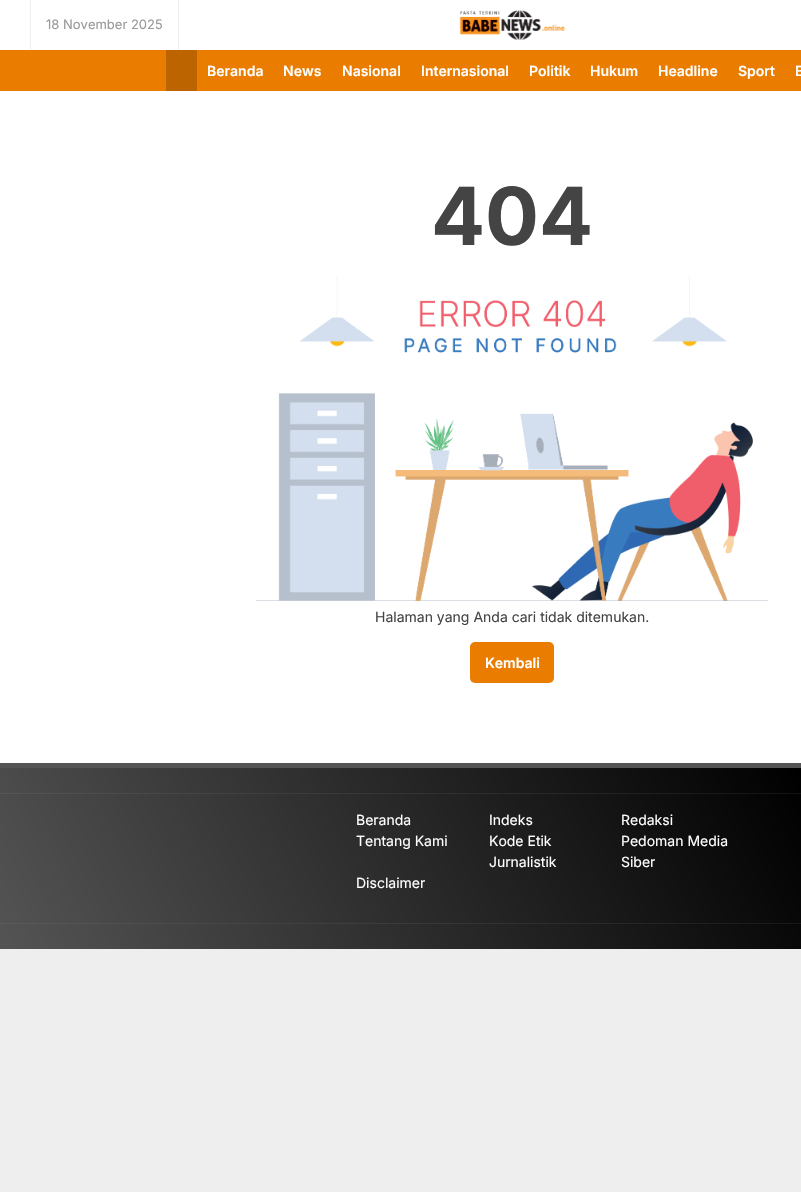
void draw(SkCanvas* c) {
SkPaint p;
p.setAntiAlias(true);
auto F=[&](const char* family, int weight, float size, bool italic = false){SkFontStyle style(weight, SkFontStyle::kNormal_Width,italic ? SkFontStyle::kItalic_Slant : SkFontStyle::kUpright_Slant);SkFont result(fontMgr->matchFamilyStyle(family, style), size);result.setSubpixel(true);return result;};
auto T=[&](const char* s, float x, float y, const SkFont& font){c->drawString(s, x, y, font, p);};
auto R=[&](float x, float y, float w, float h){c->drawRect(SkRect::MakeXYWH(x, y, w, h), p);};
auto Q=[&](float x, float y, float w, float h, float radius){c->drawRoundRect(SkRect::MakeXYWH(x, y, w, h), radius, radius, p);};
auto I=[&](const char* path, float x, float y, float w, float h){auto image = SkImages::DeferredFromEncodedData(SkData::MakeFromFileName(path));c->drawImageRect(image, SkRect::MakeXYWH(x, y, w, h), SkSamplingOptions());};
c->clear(0xffeeeeee);
p.setColor(0xffffffff);
R(0,0,801,763);
p.setColor(0xffeeeeee);
R(30,0,1,50);
R(178,0,1,50);
auto f1 = F("Inter",400,13);
p.setColor(0xff999999);
T("18 November 2025",46,29,f1);
I("1.png",459,10,106,30);
p.setColor(0xffea7d00);
R(0,50,801,41);
p.setColor(0xffbb6400);
R(166,50,31,41);
auto f2 = F("Inter",600,14);
p.setColor(0xffffffff);
T("Beranda",207,76,f2);
T("News",283,76,f2);
T("Nasional",342,76,f2);
T("Internasional",421,76,f2);
T("Politik",529,76,f2);
T("Hukum",590,76,f2);
T("Headline",658,76,f2);
T("Sport",738,76,f2);
T("E",795,76,f2);
auto f3 = F("Inter",700,80);
p.setColor(0xff444444);
T("404",431,245,f3);
I("2.png",256,276,512,325);
auto f4 = F("Inter",400,14);
T("Halaman yang Anda cari tidak ditemukan.",375,622,f4);
p.setColor(0xffea7d00);
Q(470,642,84,41,5);
p.setColor(0xffffffff);
T("Kembali",485,668,f2);
{
const SkColor colors[] = {0xff545454,0xff000000};
const float stops[] = {0,1};
const SkPoint ends[] = {{51,1044}, {750,673}};
p.setShader(SkGradientShader::MakeLinear(ends, colors, stops, 2, SkTileMode::kClamp));
p.setAlpha(255);
}
R(0,768,801,181);
{
const SkColor colors[] = {0xff5c5c5c,0xff111111};
const float stops[] = {0,1};
const SkPoint ends[] = {{51,1044}, {750,673}};
p.setShader(SkGradientShader::MakeLinear(ends, colors, stops, 2, SkTileMode::kClamp));
p.setAlpha(255);
}
R(0,923,801,1);
R(0,793,801,1);
p.setShader(nullptr);
p.setColor(0xff545454);
R(0,763,801,5);
p.setColor(0xffffffff);
T("Beranda",356,825,f4);
T("Indeks",489,825,f4);
T("Redaksi",621,825,f4);
T("Tentang Kami",356,846,f4);
T("Kode Etik",489,846,f4);
T("Jurnalistik",489,867,f4);
T("Pedoman Media",621,846,f4);
T("Siber",621,867,f4);
T("Disclaimer",356,888,f4);
}
